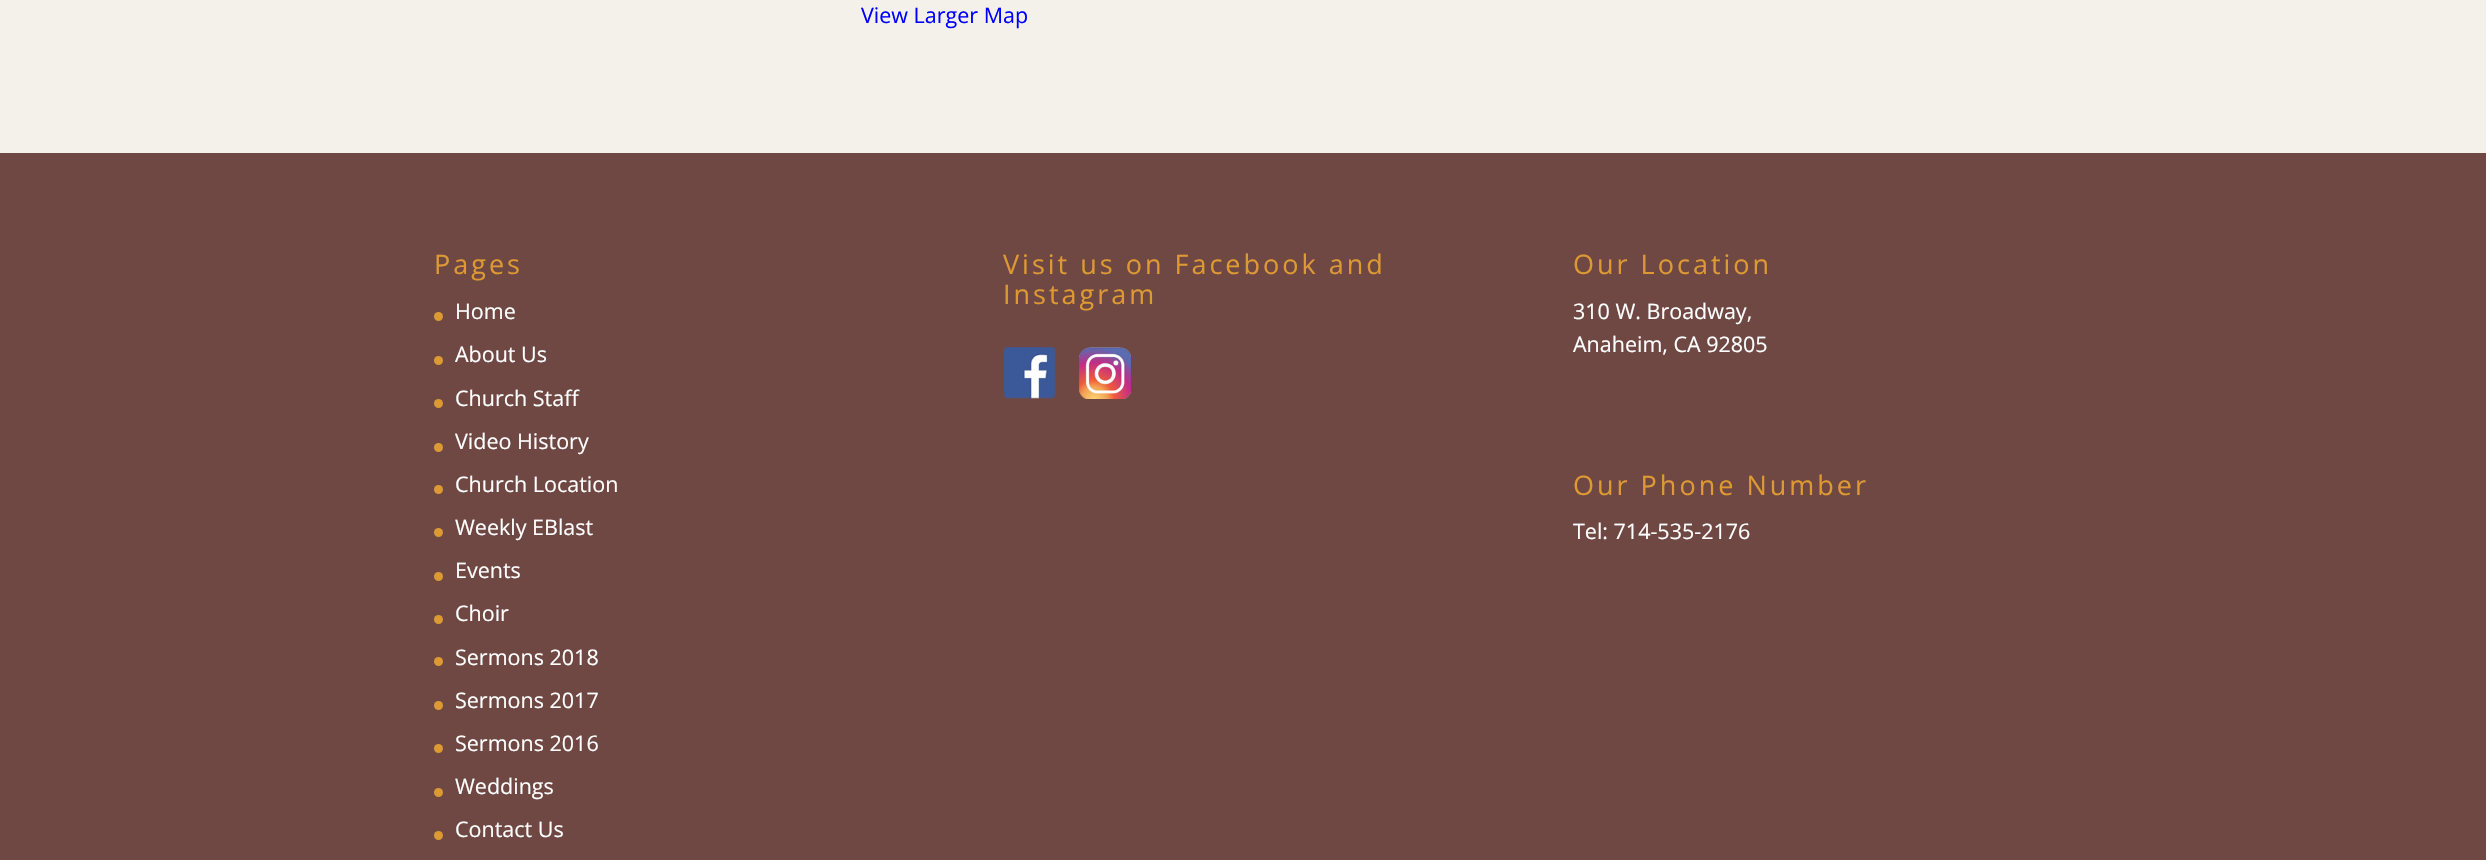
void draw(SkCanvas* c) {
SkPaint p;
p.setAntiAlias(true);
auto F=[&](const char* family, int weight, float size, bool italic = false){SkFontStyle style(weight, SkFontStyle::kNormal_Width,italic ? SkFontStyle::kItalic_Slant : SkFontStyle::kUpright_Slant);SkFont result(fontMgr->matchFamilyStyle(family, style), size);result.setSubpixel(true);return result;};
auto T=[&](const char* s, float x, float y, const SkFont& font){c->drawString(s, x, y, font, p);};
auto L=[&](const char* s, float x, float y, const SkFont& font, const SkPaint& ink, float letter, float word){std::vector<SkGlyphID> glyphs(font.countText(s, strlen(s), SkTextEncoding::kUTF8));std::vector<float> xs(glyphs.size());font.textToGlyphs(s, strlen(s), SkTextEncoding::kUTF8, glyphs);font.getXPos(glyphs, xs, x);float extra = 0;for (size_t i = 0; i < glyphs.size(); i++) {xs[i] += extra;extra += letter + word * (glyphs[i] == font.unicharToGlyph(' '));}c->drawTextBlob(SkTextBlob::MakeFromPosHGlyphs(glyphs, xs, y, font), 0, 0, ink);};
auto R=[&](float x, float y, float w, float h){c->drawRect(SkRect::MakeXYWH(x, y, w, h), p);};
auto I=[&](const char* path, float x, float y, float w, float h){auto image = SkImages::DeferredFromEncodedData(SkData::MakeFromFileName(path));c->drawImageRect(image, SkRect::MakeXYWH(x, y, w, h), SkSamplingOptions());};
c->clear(0xff6f4843);
p.setColor(0xfff4f1ea);
R(0,0,2486,153);
auto f1 = F("Open Sans",400,21.5);
p.setColor(0xff0000ff);
T("View Larger Map",861,23,f1);
auto f2 = F("Open Sans",400,27);
p.setColor(0xffdd9933);
L("Pages",434,274,f2,p,3,0);
c->drawCircle(438.5,316.5,4.5,p);
p.setColor(0xffffffff);
T("Home",455,319,f1);
p.setColor(0xffdd9933);
c->drawCircle(438.5,360.5,4.5,p);
p.setColor(0xffffffff);
T("About Us",455,362,f1);
p.setColor(0xffdd9933);
c->drawCircle(438.5,403.5,4.5,p);
p.setColor(0xffffffff);
T("Church Staff",455,406,f1);
p.setColor(0xffdd9933);
c->drawCircle(438.5,447.5,4.5,p);
p.setColor(0xffffffff);
T("Video History",455,449,f1);
p.setColor(0xffdd9933);
c->drawCircle(438.5,489.5,4.5,p);
p.setColor(0xffffffff);
T("Church Location",455,492,f1);
p.setColor(0xffdd9933);
c->drawCircle(438.5,532.5,4.5,p);
p.setColor(0xffffffff);
T("Weekly EBlast",455,535,f1);
p.setColor(0xffdd9933);
c->drawCircle(438.5,576.5,4.5,p);
p.setColor(0xffffffff);
T("Events",455,578,f1);
p.setColor(0xffdd9933);
c->drawCircle(438.5,619.5,4.5,p);
p.setColor(0xffffffff);
T("Choir",455,621,f1);
p.setColor(0xffdd9933);
c->drawCircle(438.5,661.5,4.5,p);
p.setColor(0xffffffff);
T("Sermons 2018",455,665,f1);
p.setColor(0xffdd9933);
c->drawCircle(438.5,705.5,4.5,p);
p.setColor(0xffffffff);
T("Sermons 2017",455,708,f1);
p.setColor(0xffdd9933);
c->drawCircle(438.5,748.5,4.5,p);
p.setColor(0xffffffff);
T("Sermons 2016",455,751,f1);
p.setColor(0xffdd9933);
c->drawCircle(438.5,792.5,4.5,p);
p.setColor(0xffffffff);
T("Weddings",455,794,f1);
p.setColor(0xffdd9933);
c->drawCircle(438.5,835.5,4.5,p);
p.setColor(0xffffffff);
T("Contact Us",455,837,f1);
p.setColor(0xffdd9933);
L("Visit us on Facebook and",1003,274,f2,p,3,0);
L("Instagram",1003,304,f2,p,3,0);
I("1.png",1004,347,52,52);
I("2.png",1079,347,52,52);
L("Our Location",1573,274,f2,p,3,0);
p.setColor(0xffffffff);
T("310 W. Broadway,",1573,319,f1);
T("Anaheim, CA 92805",1573,352,f1);
p.setColor(0xffdd9933);
L("Our Phone Number",1573,495,f2,p,3,0);
p.setColor(0xffffffff);
T("Tel: 714-535-2176",1573,539,f1);
}
